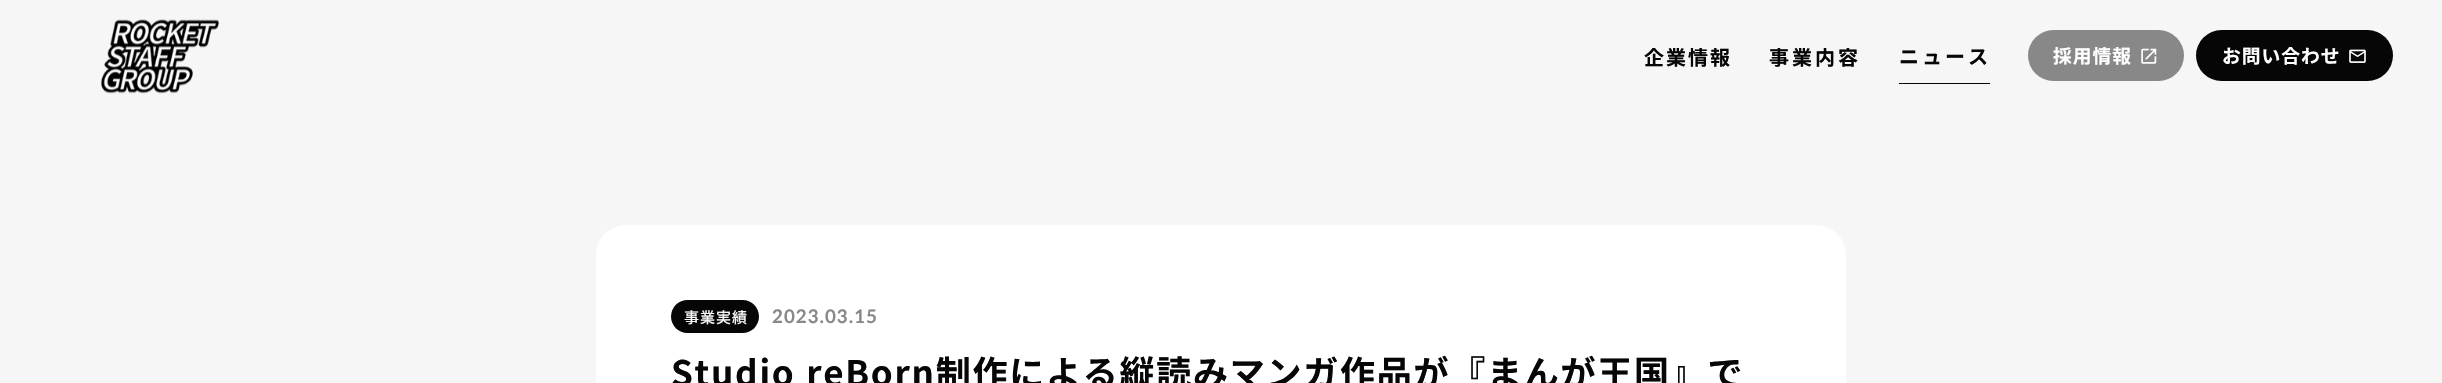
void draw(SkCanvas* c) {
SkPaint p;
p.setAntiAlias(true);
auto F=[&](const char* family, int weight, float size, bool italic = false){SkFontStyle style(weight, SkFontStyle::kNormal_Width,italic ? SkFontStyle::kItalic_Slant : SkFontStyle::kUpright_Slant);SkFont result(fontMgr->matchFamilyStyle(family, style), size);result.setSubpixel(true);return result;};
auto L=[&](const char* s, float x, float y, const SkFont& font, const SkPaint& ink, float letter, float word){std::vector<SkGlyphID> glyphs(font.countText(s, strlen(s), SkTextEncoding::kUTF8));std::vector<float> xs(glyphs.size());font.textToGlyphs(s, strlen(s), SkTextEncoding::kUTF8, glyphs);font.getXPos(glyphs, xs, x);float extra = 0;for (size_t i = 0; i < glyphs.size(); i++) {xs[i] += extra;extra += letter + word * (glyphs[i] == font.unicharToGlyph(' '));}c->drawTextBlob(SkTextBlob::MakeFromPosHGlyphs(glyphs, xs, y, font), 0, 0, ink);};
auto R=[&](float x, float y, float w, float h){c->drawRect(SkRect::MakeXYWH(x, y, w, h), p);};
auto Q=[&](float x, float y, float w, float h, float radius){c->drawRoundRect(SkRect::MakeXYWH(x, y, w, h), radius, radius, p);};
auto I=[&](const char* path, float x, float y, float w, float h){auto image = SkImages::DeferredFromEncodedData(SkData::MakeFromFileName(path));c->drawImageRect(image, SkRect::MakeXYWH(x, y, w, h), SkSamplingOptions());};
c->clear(0xfff6f6f6);
I("1.png",101,19,118,75);
auto f1 = F("Noto Sans JP",700,20);
p.setColor(0xff060606);
L("企業情報",1644,65,f1,p,2,0);
L("事業内容",1769,65,f1,p,3,0);
R(1899,83,91,1);
L("ニュース",1899,64,f1,p,3,0);
p.setColor(0xff888888);
Q(2028,30,156,51,25.5);
auto f2 = F("Noto Sans JP",700,18.75);
p.setColor(0xffffffff);
L("採用情報",2053,63,f2,p,1,0);
I("2.png",2141,48,16,16);
p.setColor(0xff060606);
Q(2196,30,197,51,25.5);
p.setColor(0xffffffff);
L("お問い合わせ",2222,63,f2,p,1,0);
I("3.png",2349,49,17,14);
Q(596,225,1250,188,30);
p.setColor(0xff060606);
Q(671,300,88,33,16.5);
auto f3 = F("Noto Sans JP",500,15);
p.setColor(0xfff6f6f6);
L("事業実績",684,323,f3,p,1,0);
auto f4 = F("Lato",700,18.75);
p.setColor(0xff888888);
L("2023.03.15",772,323,f4,p,1,0);
auto f5 = F("Noto Sans JP",700,35);
p.setColor(0xff060606);
L("Studio reBorn制作による縦読みマンガ作品が『まんが王国』で",671,386,f5,p,1.75,1);
}
